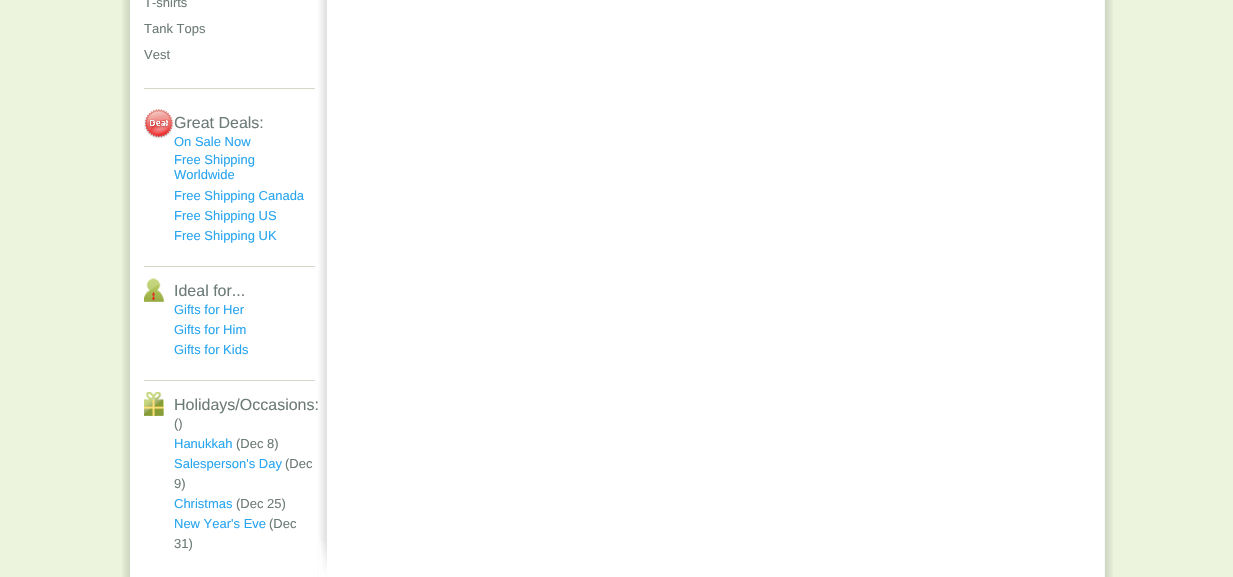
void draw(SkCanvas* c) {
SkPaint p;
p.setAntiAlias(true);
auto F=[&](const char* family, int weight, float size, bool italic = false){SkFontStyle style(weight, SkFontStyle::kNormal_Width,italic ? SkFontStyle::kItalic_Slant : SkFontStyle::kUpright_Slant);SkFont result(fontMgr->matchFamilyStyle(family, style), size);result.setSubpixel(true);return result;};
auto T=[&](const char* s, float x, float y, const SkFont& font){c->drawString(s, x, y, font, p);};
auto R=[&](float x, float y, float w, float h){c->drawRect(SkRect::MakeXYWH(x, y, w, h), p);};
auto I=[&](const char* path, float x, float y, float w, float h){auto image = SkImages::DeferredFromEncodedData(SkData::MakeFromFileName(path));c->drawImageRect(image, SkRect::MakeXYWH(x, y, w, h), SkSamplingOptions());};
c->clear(0xffecf4de);
I("1.png",122,0,991,577);
I("2.png",319,541,8,36);
p.setColor(0xffd2d9c6);
R(144,88,171,1);
auto f1 = F("Liberation Sans",400,13);
p.setColor(0xff6d7b78);
T("T-shirts",144,7,f1);
T("Tank Tops",144,33,f1);
T("Vest",144,59,f1);
I("3.png",144,109,30,30);
p.setColor(0xffd2d9c6);
R(144,266,171,1);
auto f2 = F("Liberation Sans",400,16);
p.setColor(0xff6d7b78);
T("Great Deals:",174,128,f2);
p.setColor(0xff28a5ef);
T("On Sale Now",174,146,f1);
T("Free Shipping",174,164,f1);
T("Worldwide",174,179,f1);
T("Free Shipping Canada",174,200,f1);
T("Free Shipping US",174,220,f1);
T("Free Shipping UK",174,240,f1);
I("4.png",144,278,20,24);
p.setColor(0xffd2d9c6);
R(144,380,171,1);
p.setColor(0xff6d7b78);
T("Ideal for...",174,296,f2);
p.setColor(0xff28a5ef);
T("Gifts for Her",174,314,f1);
T("Gifts for Him",174,334,f1);
T("Gifts for Kids",174,354,f1);
I("5.png",144,392,20,24);
p.setColor(0xff6d7b78);
T("Holidays/Occasions:",174,410,f2);
T("()",174,428,f1);
p.setColor(0xff28a5ef);
T("Hanukkah",174,448,f1);
p.setColor(0xff6d7b78);
T("(Dec 8)",236,448,f1);
p.setColor(0xff28a5ef);
T("Salesperson's Day",174,468,f1);
p.setColor(0xff6d7b78);
T("(Dec",285,468,f1);
T("9)",174,488,f1);
p.setColor(0xff28a5ef);
T("Christmas",174,508,f1);
p.setColor(0xff6d7b78);
T("(Dec 25)",236,508,f1);
p.setColor(0xff28a5ef);
T("New Year's Eve",174,528,f1);
p.setColor(0xff6d7b78);
T("(Dec",269,528,f1);
T("31)",174,548,f1);
}
